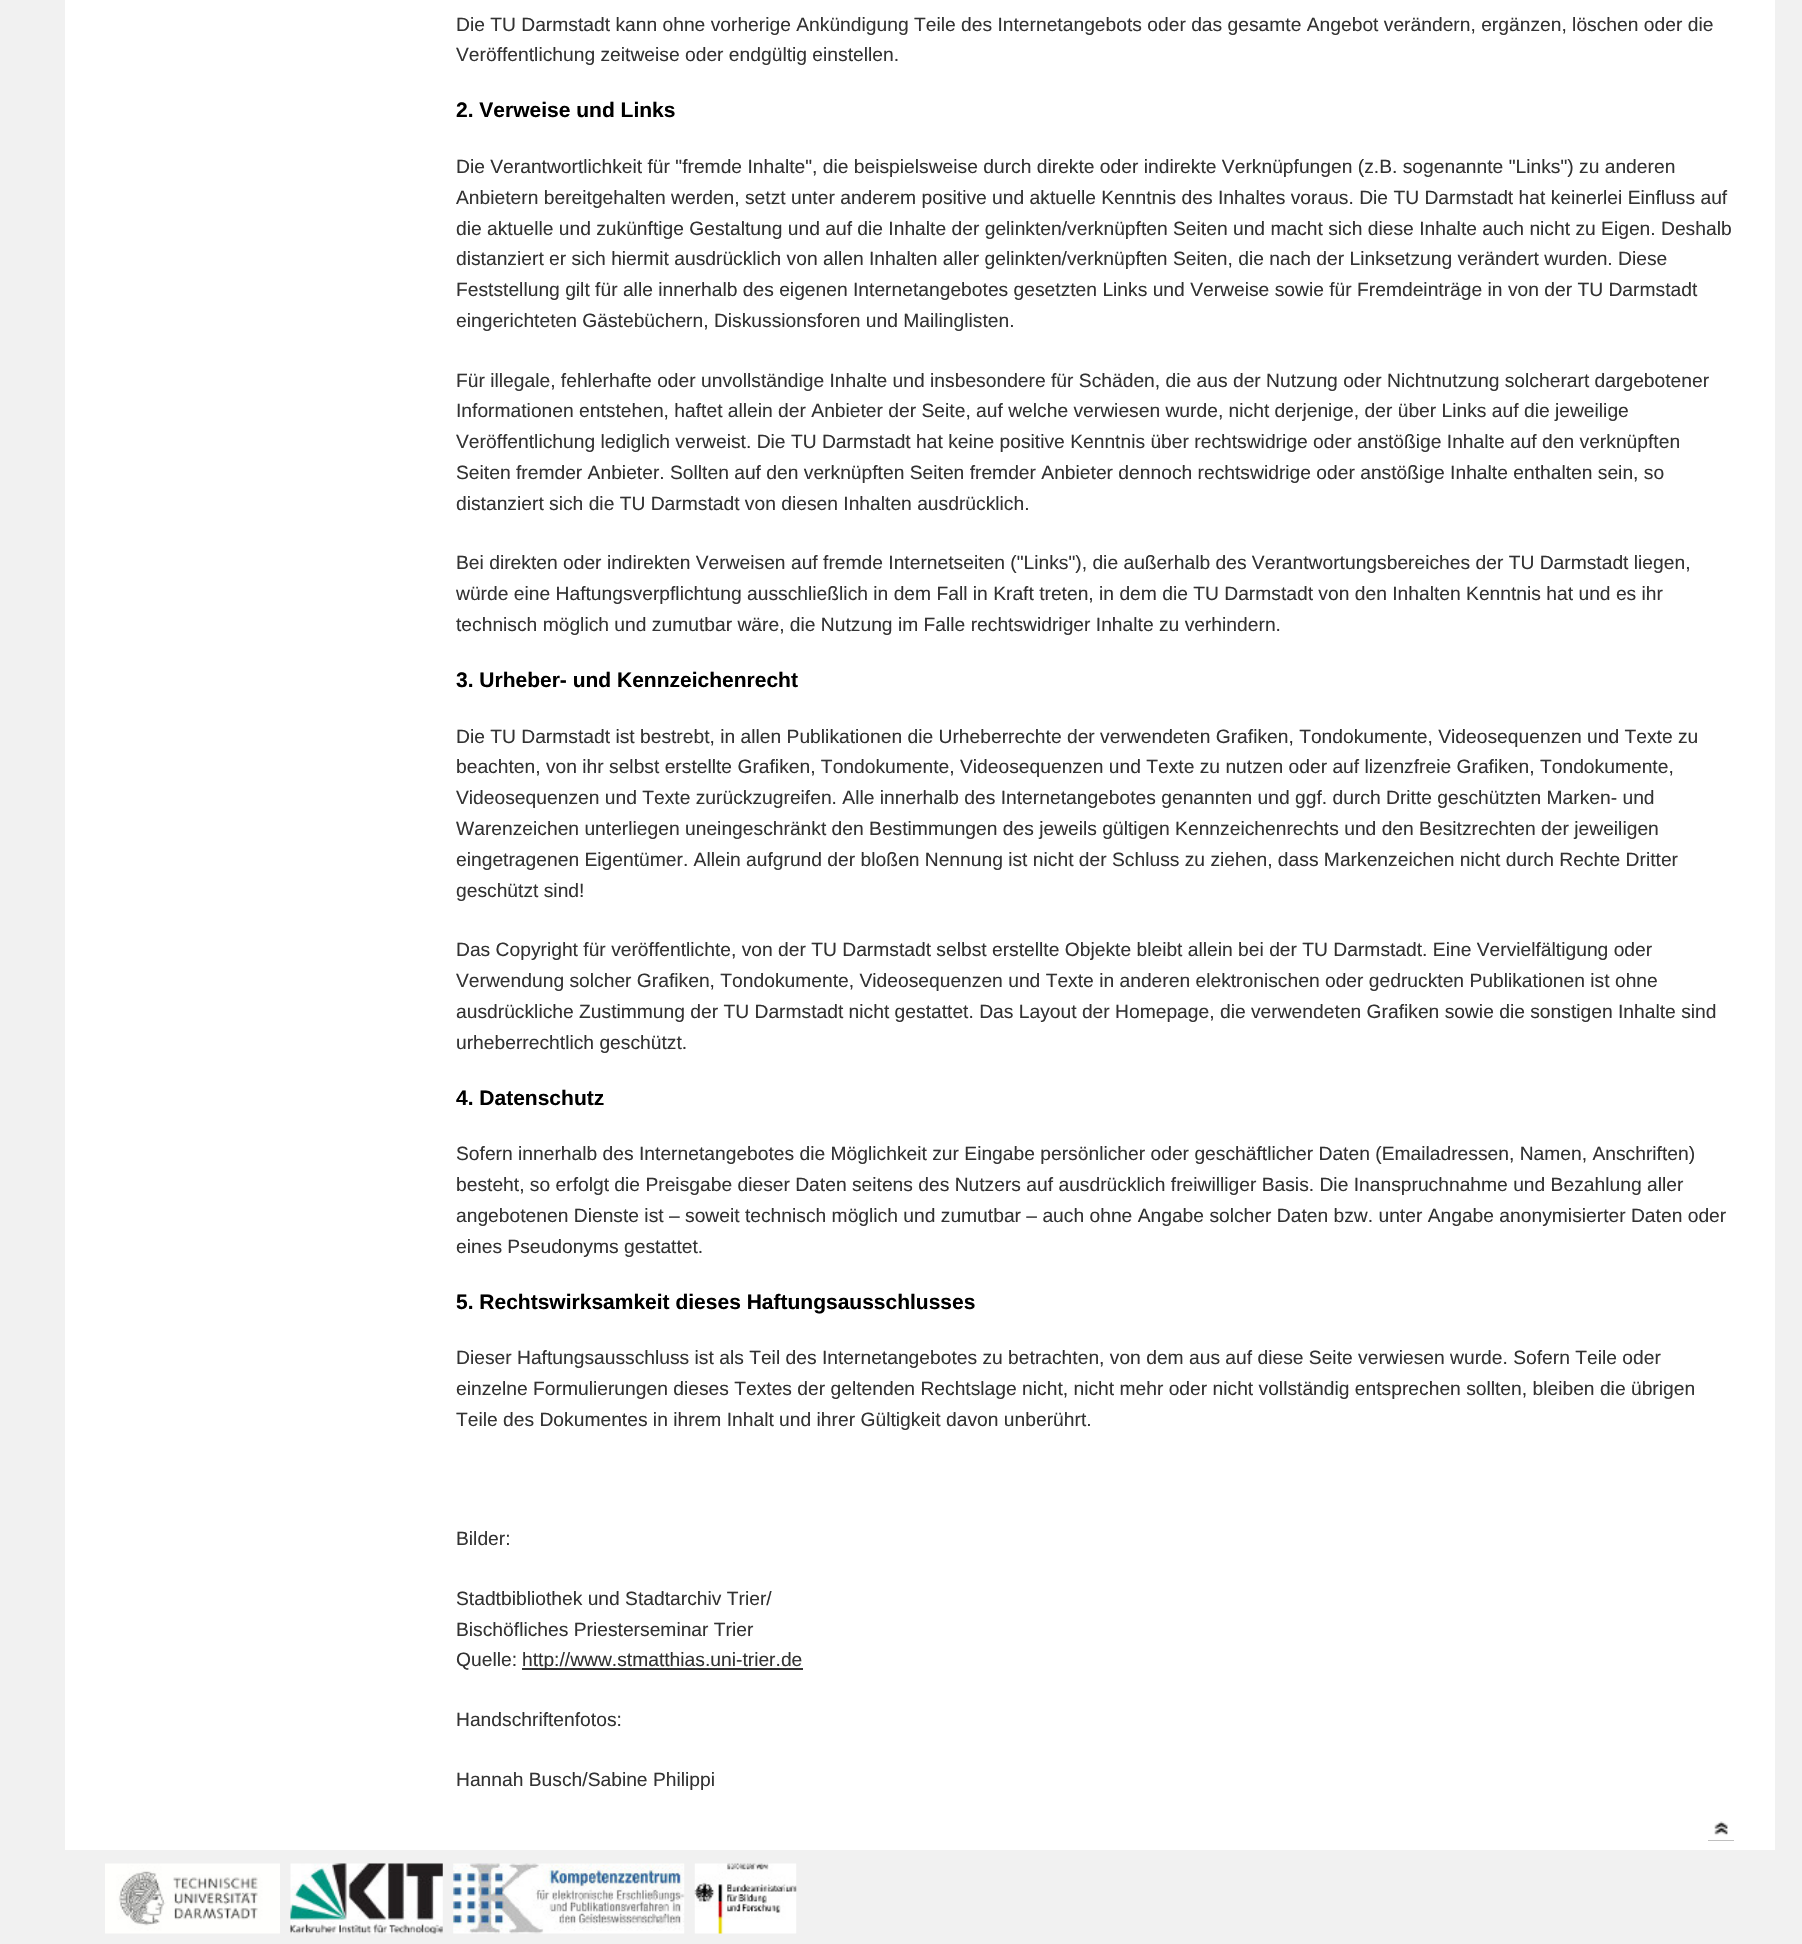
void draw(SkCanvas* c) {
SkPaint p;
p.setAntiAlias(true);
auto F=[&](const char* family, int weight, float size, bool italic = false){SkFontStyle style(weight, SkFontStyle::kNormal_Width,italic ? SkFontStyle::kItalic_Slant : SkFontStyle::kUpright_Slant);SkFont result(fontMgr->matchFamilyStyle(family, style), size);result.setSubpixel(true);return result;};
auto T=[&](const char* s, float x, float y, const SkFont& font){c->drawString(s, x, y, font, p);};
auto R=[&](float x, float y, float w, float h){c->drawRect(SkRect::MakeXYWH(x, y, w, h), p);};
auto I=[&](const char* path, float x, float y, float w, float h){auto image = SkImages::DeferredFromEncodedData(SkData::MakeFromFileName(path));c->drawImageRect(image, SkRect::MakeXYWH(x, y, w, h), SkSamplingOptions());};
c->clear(0xfff1f1f1);
p.setColor(0xffffffff);
R(65,0,1710,1850);
auto f1 = F("Liberation Sans",400,19.25);
p.setColor(0xff333333);
T("Die TU Darmstadt kann ohne vorherige Ankündigung Teile des Internetangebots oder das gesamte Angebot verändern, ergänzen, löschen oder die",456,31,f1);
T("Veröffentlichung zeitweise oder endgültig einstellen.",456,61,f1);
auto f2 = F("Liberation Sans",700,21);
p.setColor(0xff000000);
T("2. Verweise und Links",456,117,f2);
p.setColor(0xff333333);
T("Die Verantwortlichkeit für \"fremde Inhalte\", die beispielsweise durch direkte oder indirekte Verknüpfungen (z.B. sogenannte \"Links\") zu anderen",456,173,f1);
T("Anbietern bereitgehalten werden, setzt unter anderem positive und aktuelle Kenntnis des Inhaltes voraus. Die TU Darmstadt hat keinerlei Einfluss auf",456,204,f1);
T("die aktuelle und zukünftige Gestaltung und auf die Inhalte der gelinkten/verknüpften Seiten und macht sich diese Inhalte auch nicht zu Eigen. Deshalb",456,235,f1);
T("distanziert er sich hiermit ausdrücklich von allen Inhalten aller gelinkten/verknüpften Seiten, die nach der Linksetzung verändert wurden. Diese",456,265,f1);
T("Feststellung gilt für alle innerhalb des eigenen Internetangebotes gesetzten Links und Verweise sowie für Fremdeinträge in von der TU Darmstadt",456,296,f1);
T("eingerichteten Gästebüchern, Diskussionsforen und Mailinglisten.",456,327,f1);
T("Für illegale, fehlerhafte oder unvollständige Inhalte und insbesondere für Schäden, die aus der Nutzung oder Nichtnutzung solcherart dargebotener",456,387,f1);
T("Informationen entstehen, haftet allein der Anbieter der Seite, auf welche verwiesen wurde, nicht derjenige, der über Links auf die jeweilige",456,417,f1);
T("Veröffentlichung lediglich verweist. Die TU Darmstadt hat keine positive Kenntnis über rechtswidrige oder anstößige Inhalte auf den verknüpften",456,448,f1);
T("Seiten fremder Anbieter. Sollten auf den verknüpften Seiten fremder Anbieter dennoch rechtswidrige oder anstößige Inhalte enthalten sein, so",456,479,f1);
T("distanziert sich die TU Darmstadt von diesen Inhalten ausdrücklich.",456,510,f1);
T("Bei direkten oder indirekten Verweisen auf fremde Internetseiten (\"Links\"), die außerhalb des Verantwortungsbereiches der TU Darmstadt liegen,",456,569,f1);
T("würde eine Haftungsverpflichtung ausschließlich in dem Fall in Kraft treten, in dem die TU Darmstadt von den Inhalten Kenntnis hat und es ihr",456,600,f1);
T("technisch möglich und zumutbar wäre, die Nutzung im Falle rechtswidriger Inhalte zu verhindern.",456,631,f1);
p.setColor(0xff000000);
T("3. Urheber- und Kennzeichenrecht",456,687,f2);
p.setColor(0xff333333);
T("Die TU Darmstadt ist bestrebt, in allen Publikationen die Urheberrechte der verwendeten Grafiken, Tondokumente, Videosequenzen und Texte zu",456,743,f1);
T("beachten, von ihr selbst erstellte Grafiken, Tondokumente, Videosequenzen und Texte zu nutzen oder auf lizenzfreie Grafiken, Tondokumente,",456,773,f1);
T("Videosequenzen und Texte zurückzugreifen. Alle innerhalb des Internetangebotes genannten und ggf. durch Dritte geschützten Marken- und",456,804,f1);
T("Warenzeichen unterliegen uneingeschränkt den Bestimmungen des jeweils gültigen Kennzeichenrechts und den Besitzrechten der jeweiligen",456,835,f1);
T("eingetragenen Eigentümer. Allein aufgrund der bloßen Nennung ist nicht der Schluss zu ziehen, dass Markenzeichen nicht durch Rechte Dritter",456,866,f1);
T("geschützt sind!",456,897,f1);
T("Das Copyright für veröffentlichte, von der TU Darmstadt selbst erstellte Objekte bleibt allein bei der TU Darmstadt. Eine Vervielfältigung oder",456,956,f1);
T("Verwendung solcher Grafiken, Tondokumente, Videosequenzen und Texte in anderen elektronischen oder gedruckten Publikationen ist ohne",456,987,f1);
T("ausdrückliche Zustimmung der TU Darmstadt nicht gestattet. Das Layout der Homepage, die verwendeten Grafiken sowie die sonstigen Inhalte sind",456,1018,f1);
T("urheberrechtlich geschützt.",456,1049,f1);
p.setColor(0xff000000);
T("4. Datenschutz",456,1105,f2);
p.setColor(0xff333333);
T("Sofern innerhalb des Internetangebotes die Möglichkeit zur Eingabe persönlicher oder geschäftlicher Daten (Emailadressen, Namen, Anschriften)",456,1160,f1);
T("besteht, so erfolgt die Preisgabe dieser Daten seitens des Nutzers auf ausdrücklich freiwilliger Basis. Die Inanspruchnahme und Bezahlung aller",456,1191,f1);
T("angebotenen Dienste ist – soweit technisch möglich und zumutbar – auch ohne Angabe solcher Daten bzw. unter Angabe anonymisierter Daten oder",456,1222,f1);
T("eines Pseudonyms gestattet.",456,1253,f1);
p.setColor(0xff000000);
T("5. Rechtswirksamkeit dieses Haftungsausschlusses",456,1309,f2);
p.setColor(0xff333333);
T("Dieser Haftungsausschluss ist als Teil des Internetangebotes zu betrachten, von dem aus auf diese Seite verwiesen wurde. Sofern Teile oder",456,1364,f1);
T("einzelne Formulierungen dieses Textes der geltenden Rechtslage nicht, nicht mehr oder nicht vollständig entsprechen sollten, bleiben die übrigen",456,1395,f1);
T("Teile des Dokumentes in ihrem Inhalt und ihrer Gültigkeit davon unberührt.",456,1426,f1);
T("Bilder:",456,1545,f1);
T("Stadtbibliothek und Stadtarchiv Trier/",456,1605,f1);
T("Bischöfliches Priesterseminar Trier",456,1636,f1);
T("Quelle:",456,1666,f1);
R(522,1668,281,2);
T("http://www.stmatthias.uni-trier.de",522,1666,f1);
T("Handschriftenfotos:",456,1726,f1);
T("Hannah Busch/Sabine Philippi",456,1786,f1);
p.setColor(0xff000000);
R(1708,1821,26,20);
I("1.png",1708,1815,26,26);
I("2.png",105,1863,175,71);
I("3.png",290,1863,153,71);
I("4.png",453,1863,232,71);
I("5.png",694,1863,103,71);
}
